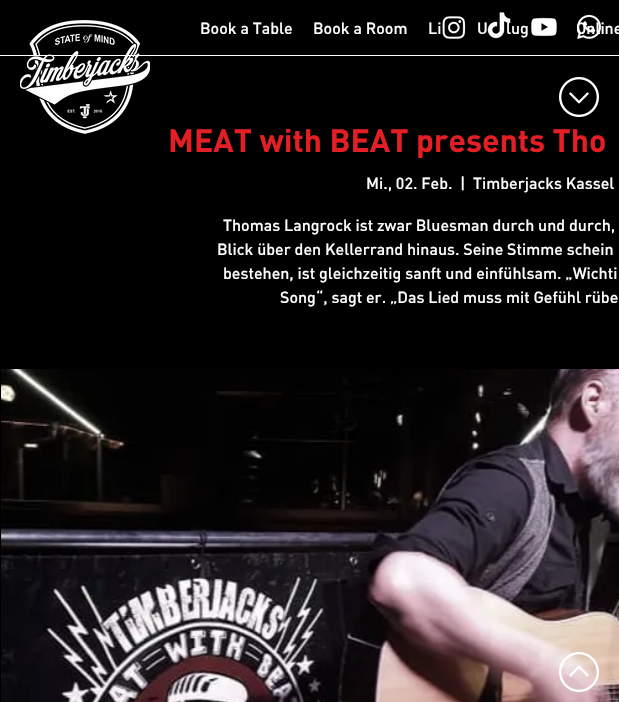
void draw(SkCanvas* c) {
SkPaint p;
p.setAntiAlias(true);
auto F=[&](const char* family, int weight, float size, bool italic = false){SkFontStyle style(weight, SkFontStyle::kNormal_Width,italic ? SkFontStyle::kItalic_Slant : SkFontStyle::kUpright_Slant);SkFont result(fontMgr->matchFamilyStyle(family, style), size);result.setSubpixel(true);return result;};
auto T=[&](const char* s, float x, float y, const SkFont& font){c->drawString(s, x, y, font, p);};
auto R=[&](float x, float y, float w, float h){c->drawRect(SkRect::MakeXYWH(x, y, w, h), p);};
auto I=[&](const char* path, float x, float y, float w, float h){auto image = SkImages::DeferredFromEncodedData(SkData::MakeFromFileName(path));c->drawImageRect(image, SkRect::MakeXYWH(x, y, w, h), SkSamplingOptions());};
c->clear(0xffffffff);
p.setColor(0xff000000);
R(0,0,619,55);
R(0,56,619,646);
I("1.png",20,20,130,114);
I("2.png",442,16,24,23);
auto f1 = F("DIN",500,16);
p.setColor(0xffffffff);
T("lug",506,34,f1);
I("3.png",487,12,24,27);
I("4.png",531,17,26,20);
T("Online",576,34,f1);
I("5.png",577,14,25,25);
I("6.png",559,77,40,40);
T("Book a Table",200,34,f1);
T("Book a Room",313,34,f1);
T("Li",428,34,f1);
T("U",477,34,f1);
auto f2 = F("DIN",700,32);
p.setColor(0xffe31e24);
T("MEAT with BEAT presents Tho",168,152,f2);
p.setColor(0xffffffff);
T("Mi., 02. Feb.",366,189,f1);
T("|",460,189,f1);
T("Timberjacks Kassel",473,189,f1);
T("Thomas Langrock ist zwar Bluesman durch und durch,",223,231,f1);
T("Blick über den Kellerrand hinaus. Seine Stimme schein",217,255,f1);
T("bestehen, ist gleichzeitig sanft und einfühlsam. „Wichti",223,279,f1);
T("Song“, sagt er. „Das Lied muss mit Gefühl rübe",280,303,f1);
I("7.png",1,369,618,333);
I("8.png",559,652,40,40);
}
